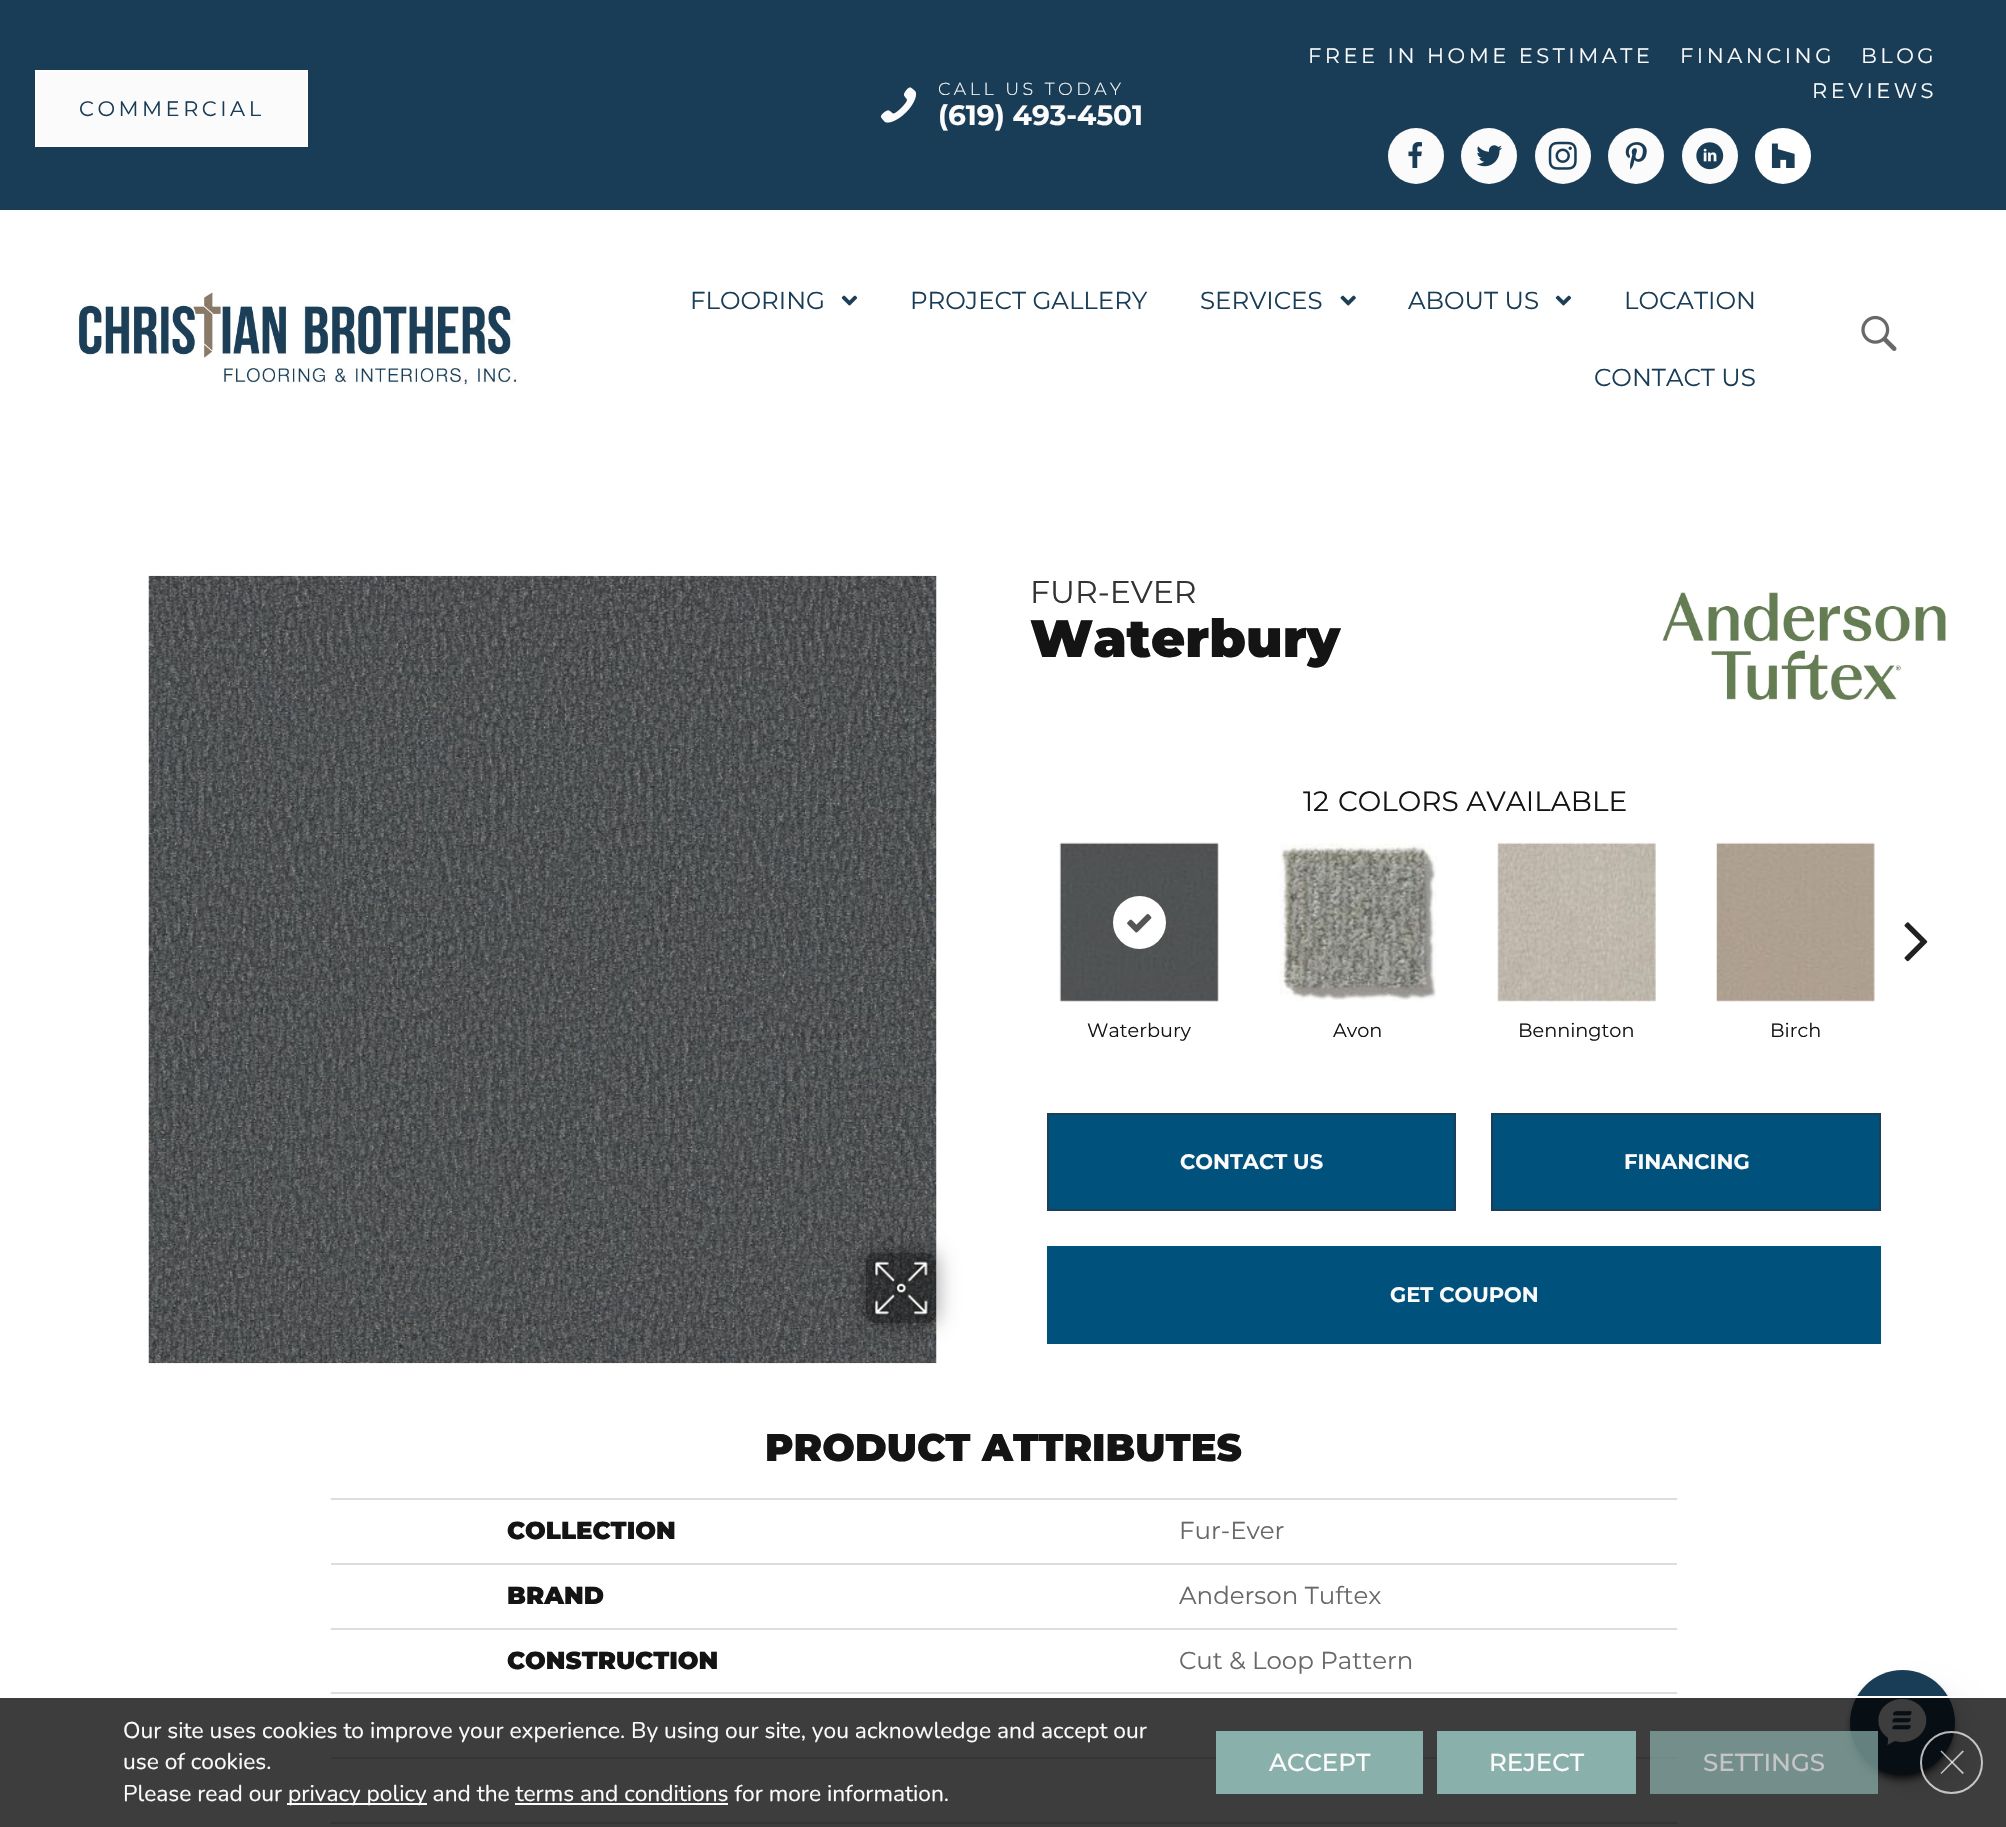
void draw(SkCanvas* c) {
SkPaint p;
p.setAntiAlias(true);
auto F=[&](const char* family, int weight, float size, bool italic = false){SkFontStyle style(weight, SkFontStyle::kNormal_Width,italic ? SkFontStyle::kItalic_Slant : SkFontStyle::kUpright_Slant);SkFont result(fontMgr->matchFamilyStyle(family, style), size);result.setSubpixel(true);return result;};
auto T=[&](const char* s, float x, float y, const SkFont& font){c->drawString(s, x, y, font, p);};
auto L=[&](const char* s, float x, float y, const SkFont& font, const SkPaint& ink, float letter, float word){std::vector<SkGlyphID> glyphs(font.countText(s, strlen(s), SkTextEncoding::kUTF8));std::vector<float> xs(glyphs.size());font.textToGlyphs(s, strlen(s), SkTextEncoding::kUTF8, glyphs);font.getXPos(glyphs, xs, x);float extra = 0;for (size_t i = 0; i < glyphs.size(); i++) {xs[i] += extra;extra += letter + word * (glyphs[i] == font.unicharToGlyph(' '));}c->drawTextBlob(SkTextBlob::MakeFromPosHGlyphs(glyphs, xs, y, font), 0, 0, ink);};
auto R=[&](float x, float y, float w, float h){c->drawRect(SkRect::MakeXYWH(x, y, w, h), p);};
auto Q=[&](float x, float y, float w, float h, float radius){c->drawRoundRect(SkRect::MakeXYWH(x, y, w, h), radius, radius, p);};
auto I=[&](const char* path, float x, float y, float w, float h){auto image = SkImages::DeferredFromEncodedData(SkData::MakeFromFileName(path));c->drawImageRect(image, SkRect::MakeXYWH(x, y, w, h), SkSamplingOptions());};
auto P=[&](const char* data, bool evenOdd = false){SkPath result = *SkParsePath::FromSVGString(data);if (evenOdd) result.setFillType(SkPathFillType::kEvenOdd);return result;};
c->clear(0xffffffff);
p.setColor(0xff1a3d57);
R(0,0,2006,210);
auto f1 = F("Montserrat",400,21);
p.setColor(0xfffbfbfb);
L("FREE IN HOME ESTIMATE",1308,63,f1,p,3.5,0);
L("FINANCING",1680,63,f1,p,3.5,0);
L("BLOG",1861,63,f1,p,3.5,0);
L("REVIEWS",1812,98,f1,p,3.5,0);
c->drawCircle(1416,156,28,p);
I("1.png",1408,142,14,26);
c->drawCircle(1489,156,28,p);
I("2.png",1476,145,26,22);
c->drawCircle(1563,156,28,p);
I("3.png",1548,141,29,29);
c->drawCircle(1636,156,28,p);
I("4.png",1625,142,22,28);
c->drawCircle(1710,156,28,p);
I("5.png",1696,142,28,28);
p.setColor(0xffffffff);
c->drawCircle(1783,156,28,p);
I("6.png",1771,143,24,25);
p.setColor(0xfffbfbfb);
c->drawRect(SkRect::MakeXYWH(36,71,271,75),p);
p.setStroke(true);
p.setStrokeWidth(2);
p.setColor(0xffffffff);
c->drawRect(SkRect::MakeXYWH(36,71,271,75),p);
p.setStroke(false);
p.setColor(0xff1a3d57);
L("COMMERCIAL",79,116,f1,p,3.5,0);
I("7.png",880,87,37,36);
auto f2 = F("Montserrat",300,17.5);
p.setColor(0xfffbfbfb);
L("CALL US TODAY",938,95,f2,p,3.5,0);
auto f3 = F("Montserrat",700,28);
T("(619) 493-4501",938,125,f3);
I("8.png",75,290,444,98);
auto f4 = F("Montserrat",400,24.5);
p.setColor(0xff1a3d57);
T("FLOORING",690,309,f4);
I("9.png",841,295,17,11);
T("PROJECT GALLERY",910,309,f4);
T("SERVICES",1200,309,f4);
I("10.png",1340,295,16,11);
T("ABOUT US",1408,309,f4);
I("9.png",1555,295,17,11);
T("LOCATION",1624,309,f4);
T("CONTACT US",1594,386,f4);
I("11.png",1861,315,36,36);
I("12.png",148,575,789,789);
c->save();
c->clipPath(P("M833 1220h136v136h-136zm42 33h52c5 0 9 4 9 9v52c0 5-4 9-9 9h-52c-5 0-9-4-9-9v-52c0-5 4-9 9-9z",true),true);
p.setColor(0x69000000);
p.setMaskFilter(SkMaskFilter::MakeBlur(kNormal_SkBlurStyle, 10.5));
c->drawRoundRect(SkRect::MakeXYWH(866,1253,70,70),9,9,p);
p.setMaskFilter(nullptr);
c->restore();
p.setColor(0x66000000);
Q(866,1253,70,70,9);
I("13.png",871,1257,61,62);
auto f5 = F("Montserrat",400,31.5);
p.setColor(0xff333333);
T("FUR-EVER",1030,603,f5);
auto f6 = F("Montserrat",900,52.5);
p.setColor(0xff141414);
T("Waterbury",1030,657,f6);
I("14.png",1662,592,285,109);
auto f7 = F("Montserrat",400,28);
T("12",1303,811,f7);
T("COLORS AVAILABLE",1338,811,f7);
I("15.png",1904,922,24,40);
I("16.png",1059,842,160,160);
p.setColor(0xffffffff);
c->drawCircle(1139.5,922.5,26.5,p);
I("17.png",1127,914,25,19);
auto f8 = F("Montserrat",400,19.25);
p.setColor(0xff141414);
T("Waterbury",1087,1037,f8);
I("18.png",1279,843,158,158);
T("Avon",1333,1037,f8);
I("19.png",1497,842,159,160);
T("Bennington",1518,1037,f8);
I("20.png",1716,842,159,160);
T("Birch",1770,1037,f8);
p.setColor(0xff00517c);
c->drawRect(SkRect::MakeXYWH(1048,1114,407,96),p);
p.setStroke(true);
p.setColor(0xff1c3e57);
c->drawRect(SkRect::MakeXYWH(1048,1114,407,96),p);
auto f9 = F("Montserrat",700,21);
p.setStroke(false);
p.setColor(0xfffbfbfb);
T("CONTACT US",1180,1169,f9);
p.setColor(0xff00517c);
c->drawRect(SkRect::MakeXYWH(1492,1114,388,96),p);
p.setStroke(true);
p.setColor(0xff1c3e57);
c->drawRect(SkRect::MakeXYWH(1492,1114,388,96),p);
p.setStroke(false);
p.setColor(0xfffbfbfb);
T("FINANCING",1624,1169,f9);
p.setColor(0xff00517c);
R(1047,1246,834,98);
p.setColor(0xfffbfbfb);
T("GET COUPON",1390,1302,f9);
auto f10 = F("Montserrat",900,38.5);
p.setColor(0xff141414);
T("PRODUCT ATTRIBUTES",765,1461,f10);
auto f11 = F("Montserrat",900,24.5);
T("COLLECTION",507,1539,f11);
p.setColor(0xffdddddd);
R(331,1498,1346,2);
p.setColor(0xff686868);
T("Fur-Ever",1179,1539,f4);
p.setColor(0xff141414);
T("BRAND",507,1604,f11);
p.setColor(0xffdddddd);
R(331,1563,1346,2);
p.setColor(0xff686868);
T("Anderson Tuftex",1179,1604,f4);
p.setColor(0xff141414);
T("CONSTRUCTION",507,1669,f11);
p.setColor(0xffdddddd);
R(331,1628,1346,2);
p.setColor(0xff686868);
T("Cut & Loop Pattern",1179,1669,f4);
p.setColor(0xffdddddd);
R(331,1692,1346,2);
R(331,1757,1346,2);
R(331,1822,1346,2);
p.setColor(0xff000000);
p.setMaskFilter(SkMaskFilter::MakeBlur(kNormal_SkBlurStyle, 5));
c->drawRoundRect(SkRect::MakeXYWH(1853,1680,98,98),49,49,p);
p.setMaskFilter(nullptr);
p.setColor(0x1a000000);
p.setMaskFilter(SkMaskFilter::MakeBlur(kNormal_SkBlurStyle, 13));
c->drawRoundRect(SkRect::MakeXYWH(1873,1692,94,95),47,47,p);
p.setMaskFilter(nullptr);
p.setColor(0xff1a3d57);
c->drawCircle(1902.5,1722.5,52.5,p);
I("21.png",1878,1698,49,48);
p.setColor(0xc2000000);
R(0,1698,2006,129);
p.setColor(0xffffffff);
R(1850,1696,116,2);
auto f12 = F("Nunito",400,22.75);
p.setColor(0xfffbfbfb);
T("Our site uses cookies to improve your experience. By using our site, you acknowledge and accept our",123,1738,f12);
T("use of cookies.",123,1769,f12);
T("Please read our",123,1801,f12);
p.setColor(0xffffffff);
R(287,1803,140,2);
p.setColor(0xfffbfbfb);
T("privacy policy and the terms and conditions for more information.",288,1801,f12);
p.setColor(0xffffffff);
R(515,1803,213,2);
p.setColor(0xff8ab0ab);
R(1216,1731,207,63);
auto f13 = F("Montserrat",500,24.5);
p.setColor(0xfffbfbfb);
T("ACCEPT",1269,1771,f13);
p.setColor(0xff8ab0ab);
R(1437,1731,199,63);
p.setColor(0xfffbfbfb);
T("REJECT",1489,1771,f13);
p.setColor(0xb38ab0ab);
R(1650,1731,228,63);
p.setColor(0xffc5c5c5);
T("SETTINGS",1703,1771,f13);
p.setStroke(true);
p.setColor(0xb3ffffff);
c->drawCircle(1951.5,1762.5,30.5,p);
p.setStroke(false);
p.setColor(0xffc4c4c4);
c->drawPath(P("M1962.5 1750.5l1.5 1l-22.5 22.5l-1-1z"),p);
p.setColor(0xb3ffffff);
c->drawPath(P("M1940.5 1751.5l1-1l22.5 22.5l-1.5 1z"),p);
}
